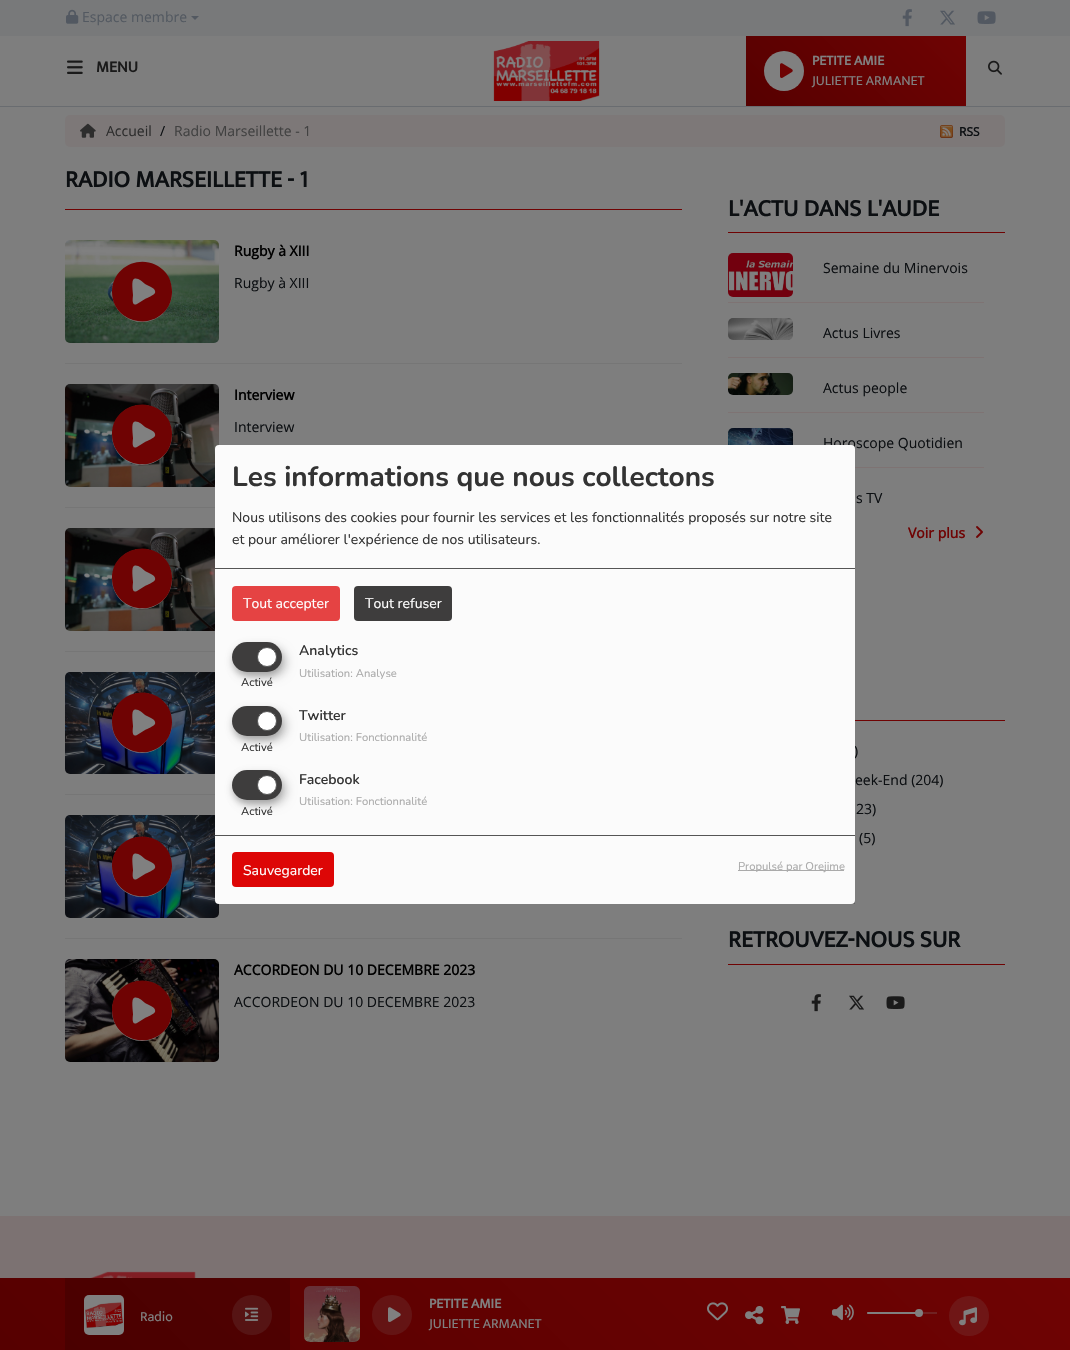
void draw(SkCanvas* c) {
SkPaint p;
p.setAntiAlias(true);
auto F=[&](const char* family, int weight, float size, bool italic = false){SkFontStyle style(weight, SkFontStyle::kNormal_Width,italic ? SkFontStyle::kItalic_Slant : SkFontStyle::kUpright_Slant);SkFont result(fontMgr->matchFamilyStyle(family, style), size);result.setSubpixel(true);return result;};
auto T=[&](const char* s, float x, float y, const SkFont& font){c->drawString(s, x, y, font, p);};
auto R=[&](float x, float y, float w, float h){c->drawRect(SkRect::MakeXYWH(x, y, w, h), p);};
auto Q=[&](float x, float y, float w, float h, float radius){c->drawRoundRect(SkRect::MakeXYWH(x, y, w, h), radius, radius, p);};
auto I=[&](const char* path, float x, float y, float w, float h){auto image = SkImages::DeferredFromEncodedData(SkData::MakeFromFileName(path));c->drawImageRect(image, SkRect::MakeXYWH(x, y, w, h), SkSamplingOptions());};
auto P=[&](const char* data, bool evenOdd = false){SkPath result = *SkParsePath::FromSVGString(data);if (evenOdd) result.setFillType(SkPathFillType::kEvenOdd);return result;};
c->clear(0xff7e7e7e);
p.setColor(0xff78797a);
R(0,0,1070,36);
I("1.png",66,9,13,15);
auto f1 = F("Open Sans",400,14);
p.setColor(0xff535961);
T("Espace membre",82,22,f1);
c->drawPath(P("M191 16h8l-4 4z"),p);
I("2.png",902,9,10,18);
I("3.png",940,10,15,15);
I("4.png",977,11,19,13);
p.setColor(0xff696c70);
R(0,106,1070,1);
I("5.png",67,60,16,14);
auto f2 = F("Mukta",700,16);
p.setColor(0xff1a1a1a);
T("MENU",96,72,f2);
I("6.png",493,41,107,60);
{
const SkColor colors[] = {0xff6f0303,0xff560000};
const float stops[] = {0,1};
const SkPoint ends[] = {{929,-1.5}, {784,144}};
p.setShader(SkGradientShader::MakeLinear(ends, colors, stops, 2, SkTileMode::kClamp));
p.setAlpha(255);
}
R(746,36,220,70);
p.setShader(nullptr);
p.setColor(0xff808080);
c->drawCircle(784,71,20,p);
I("7.png",780,63,13,15);
auto f3 = F("Mukta",700,14);
T("PETITE AMIE",812,65,f3);
auto f4 = F("Mukta",400,14);
T("JULIETTE ARMANET",812,85,f4);
I("8.png",988,60,14,15);
{
const SkColor colors[] = {0xff6f0303,0xff560000};
const float stops[] = {0,1};
const SkPoint ends[] = {{821,1029}, {250,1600}};
p.setShader(SkGradientShader::MakeLinear(ends, colors, stops, 2, SkTileMode::kClamp));
p.setAlpha(255);
}
R(0,1278,1070,72);
{
const SkColor colors[] = {0xff732222,0xff602020};
const float stops[] = {0,1};
const SkPoint ends[] = {{821,1029}, {250,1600}};
p.setShader(SkGradientShader::MakeLinear(ends, colors, stops, 2, SkTileMode::kClamp));
p.setAlpha(255);
}
R(867,1312,70,2);
{
const SkColor colors[] = {0xff5e0303,0xff490000};
const float stops[] = {0,1};
const SkPoint ends[] = {{821,1029}, {250,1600}};
p.setShader(SkGradientShader::MakeLinear(ends, colors, stops, 2, SkTileMode::kClamp));
p.setAlpha(255);
}
R(65,1278,225,72);
I("9.png",84,1295,40,40);
p.setShader(nullptr);
p.setColor(0xff808080);
T("Radio",140,1321,f4);
p.setColor(0x26808080);
c->drawCircle(252,1315,20,p);
I("10.png",245,1307,14,14);
I("11.png",304,1286,56,56);
c->drawCircle(392,1315,20,p);
I("12.png",388,1307,13,15);
p.setColor(0xff808080);
T("PETITE AMIE",429,1308,f3);
T("JULIETTE ARMANET",429,1328,f4);
I("13.png",707,1302,21,19);
I("14.png",745,1306,19,19);
I("15.png",781,1306,19,18);
I("16.png",832,1304,22,17);
Q(867,1312,53,2,1);
c->drawCircle(919,1313,4,p);
p.setColor(0xff6f1616);
c->drawCircle(969,1316,20,p);
I("17.png",959,1307,18,19);
p.setColor(0xff7d7878);
Q(65,115,940,32,5);
I("18.png",80,123,16,15);
p.setColor(0xff2d2d2d);
T("Accueil",106,136,f1);
p.setColor(0xff0c0f12);
T("/",160,136,f1);
p.setColor(0xff414141);
T("Radio Marseillette - 1",174,136,f1);
I("19.png",940,125,13,13);
auto f5 = F("Open Sans",700,12);
p.setColor(0xff0c0f12);
T("RSS",959,136,f5);
auto f6 = F("Mukta",700,24);
T("RADIO MARSEILLETTE - 1",65,187,f6);
p.setColor(0xff6f0303);
R(65,209,617,1);
p.setColor(0xff767676);
R(65,363,617,1);
I("20.png",65,240,154,103);
p.setColor(0xff808080);
c->drawCircle(142,292,30,p);
p.setColor(0xff6f0303);
c->drawPath(P("M112 292c0-29 36-41 54-19c4 5 6 12 6 19c0 6-2 13-6 18c-18 22-54 10-54-18zm22-13c-3 1-1 13-1 16c0 2-2 12 4 9l8-5c2-1 9-4 10-6c1-3-2-5-4-6l-6-3c-2-2-8-7-11-5z"),p);
auto f7 = F("Open Sans",700,14);
p.setColor(0xff000000);
T("Rugby à XIII",234,256,f7);
p.setColor(0xff0c0f12);
T("Rugby à XIII",234,288,f1);
p.setColor(0xff767676);
R(65,507,150,1);
I("21.png",65,384,154,103);
p.setColor(0xff808080);
c->drawCircle(142,435,30,p);
p.setColor(0xff6f0303);
c->drawPath(P("M112 434c0-28 36-40 54-18c4 5 6 12 6 18c0 7-2 14-6 19c-18 22-54 10-54-19zm22-12c-3 1-1 13-1 16c0 2-2 12 4 9l8-5c2-1 9-4 10-6c1-3-2-5-4-6l-6-3c-2-2-8-7-11-5z"),p);
p.setColor(0xff000000);
T("Interview",234,400,f7);
p.setColor(0xff0c0f12);
T("Interview",234,432,f1);
p.setColor(0xff767676);
R(65,651,150,1);
I("22.png",65,528,150,103);
p.setColor(0xff808080);
c->drawCircle(142,579,30,p);
p.setColor(0xff6f0303);
c->drawPath(P("M112 578c0-28 36-40 54-18c4 5 6 12 6 18c0 7-2 14-6 19c-18 22-54 10-54-19zm22-12c-3 1-1 13-1 16c0 2-2 12 4 9l8-5c2-1 9-4 10-6c1-3-2-5-4-6l-6-3c-2-2-8-7-11-5z"),p);
p.setColor(0xff767676);
R(65,794,150,1);
I("23.png",65,672,150,102);
p.setColor(0xff808080);
c->drawCircle(142,723,30,p);
p.setColor(0xff6f0303);
c->drawPath(P("M112 722c0-28 36-40 54-18c4 5 6 12 6 18c0 7-2 14-6 19c-18 22-54 10-54-19zm22-12c-3 1-1 13-1 16c0 2-2 12 4 9l8-5c2-1 9-4 10-6c1-3-2-5-4-6l-6-3c-2-2-8-7-11-5z"),p);
p.setColor(0xff767676);
R(65,938,617,1);
I("24.png",65,815,154,103);
p.setColor(0xff808080);
c->drawCircle(142,867,30,p);
p.setColor(0xff6f0303);
c->drawPath(P("M112 866c0-28 36-40 54-18c4 5 6 12 6 18c0 7-2 14-6 19c-18 22-54 10-54-19zm22-12c-3 1-1 13-1 16c0 2-2 12 4 9l8-5c2-1 9-4 10-6c1-3-2-5-4-6l-6-3c-2-2-8-7-11-5z"),p);
I("25.png",65,959,154,103);
p.setColor(0xff808080);
c->drawCircle(142,1011,30,p);
p.setColor(0xff6f0303);
c->drawPath(P("M112 1010c0-28 36-40 54-18c4 5 6 12 6 18c0 7-2 14-6 19c-18 22-54 10-54-19zm22-12c-3 1-1 13-1 16c0 2-2 12 4 9l8-5c2-1 9-4 10-6c1-3-2-5-4-6l-6-3c-2-2-8-7-11-5z"),p);
p.setColor(0xff000000);
T("ACCORDEON DU 10 DECEMBRE 2023",234,975,f7);
p.setColor(0xff0c0f12);
T("ACCORDEON DU 10 DECEMBRE 2023",234,1007,f1);
p.setColor(0xff6f0303);
R(728,232,277,1);
p.setColor(0xff0c0f12);
T("L'ACTU DANS L'AUDE",728,216,f6);
I("26.png",728,253,65,44);
T("Semaine du Minervois",823,273,f1);
p.setColor(0xff7e7373);
R(728,302,256,1);
I("27.png",728,318,65,22);
p.setColor(0xff0c0f12);
T("Actus Livres",823,338,f1);
p.setColor(0xff7e7373);
R(728,357,256,1);
I("28.png",728,373,65,22);
p.setColor(0xff0c0f12);
T("Actus people",823,393,f1);
p.setColor(0xff7e7373);
R(728,412,256,1);
I("29.png",728,428,65,17);
p.setColor(0xff0c0f12);
T("Horoscope Quotidien",823,448,f1);
p.setColor(0xff7e7373);
R(855,467,129,1);
p.setColor(0xff0c0f12);
T("s TV",856,503,f1);
p.setColor(0xff6f0303);
T("Voir plus",908,538,f7);
I("30.png",976,526,7,12);
R(855,720,150,1);
p.setColor(0xff0c0f12);
T(")",854,756,f1);
T("eek-End (204)",855,785,f1);
T("23)",856,814,f1);
T("(5)",859,843,f1);
p.setColor(0xff6f0303);
R(728,964,277,1);
p.setColor(0xff0c0f12);
T("RETROUVEZ-NOUS SUR",728,947,f6);
I("31.png",811,994,10,18);
I("32.png",849,995,15,15);
I("33.png",886,996,19,13);
c->save();
c->clipRect(SkRect::MakeXYWH(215,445,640,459));
p.setColor(0x30000000);
p.setMaskFilter(SkMaskFilter::MakeBlur(kNormal_SkBlurStyle, 5));
c->drawRoundRect(SkRect::MakeXYWH(220,450,640,459),4,4,p);
p.setMaskFilter(nullptr);
p.setColor(0x33000000);
p.setMaskFilter(SkMaskFilter::MakeBlur(kNormal_SkBlurStyle, 3));
c->drawRoundRect(SkRect::MakeXYWH(215,449,640,459),4,4,p);
p.setMaskFilter(nullptr);
c->restore();
p.setColor(0xfffbfbfb);
Q(215,445,640,459,4);
p.setColor(0xff555555);
R(215,568,640,1);
auto f8 = F("Nunito",700,28);
p.setColor(0xff333333);
T("Les informations que nous collectons",232,486,f8);
auto f9 = F("Nunito",400,14);
T("Nous utilisons des cookies pour fournir les services et les fonctionnalités proposés sur notre site",232,522,f9);
T("et pour améliorer l'expérience de nos utilisateurs.",232,544,f9);
p.setColor(0xffe54343);
Q(232,586,108,35,4);
p.setColor(0xffffffff);
T("Tout accepter",243,608,f9);
p.setColor(0xff3e3d3d);
Q(354,586,98,35,4);
p.setColor(0xffffffff);
T("Tout refuser",365,608,f9);
auto f10 = F("Nunito",600,14);
p.setColor(0xff333333);
T("Analytics",299,655,f10);
p.setColor(0x30000000);
p.setMaskFilter(SkMaskFilter::MakeBlur(kNormal_SkBlurStyle, 5));
c->drawRoundRect(SkRect::MakeXYWH(237,647,50,30),15,15,p);
p.setMaskFilter(nullptr);
p.setColor(0x33000000);
p.setMaskFilter(SkMaskFilter::MakeBlur(kNormal_SkBlurStyle, 3));
c->drawRoundRect(SkRect::MakeXYWH(232,646,50,30),15,15,p);
p.setMaskFilter(nullptr);
p.setColor(0xff3e3d3d);
Q(232,642,50,30,15);
p.setColor(0xffffffff);
c->drawCircle(267,657,9.5,p);
p.setStroke(true);
p.setStrokeWidth(1);
p.setColor(0xff555555);
c->drawCircle(267,657,9.5,p);
auto f11 = F("Nunito",400,11.25);
p.setStroke(false);
p.setColor(0xff333333);
T("Activé",241,686,f11);
p.setColor(0xffaaaaaa);
T("Utilisation: Analyse",299,677,f11);
p.setColor(0xff333333);
T("Twitter",299,720,f10);
p.setColor(0x30000000);
p.setMaskFilter(SkMaskFilter::MakeBlur(kNormal_SkBlurStyle, 5));
c->drawRoundRect(SkRect::MakeXYWH(237,711,50,30),15,15,p);
p.setMaskFilter(nullptr);
p.setColor(0x33000000);
p.setMaskFilter(SkMaskFilter::MakeBlur(kNormal_SkBlurStyle, 3));
c->drawRoundRect(SkRect::MakeXYWH(232,710,50,30),15,15,p);
p.setMaskFilter(nullptr);
p.setColor(0xff3e3d3d);
Q(232,706,50,30,15);
p.setColor(0xffffffff);
c->drawCircle(267,721,9.5,p);
p.setStroke(true);
p.setColor(0xff555555);
c->drawCircle(267,721,9.5,p);
p.setStroke(false);
p.setColor(0xff333333);
T("Activé",241,751,f11);
p.setColor(0xffaaaaaa);
T("Utilisation: Fonctionnalité",299,741,f11);
p.setColor(0xff333333);
T("Facebook",299,784,f10);
p.setColor(0x30000000);
p.setMaskFilter(SkMaskFilter::MakeBlur(kNormal_SkBlurStyle, 5));
c->drawRoundRect(SkRect::MakeXYWH(237,775,50,30),15,15,p);
p.setMaskFilter(nullptr);
p.setColor(0x33000000);
p.setMaskFilter(SkMaskFilter::MakeBlur(kNormal_SkBlurStyle, 3));
c->drawRoundRect(SkRect::MakeXYWH(232,774,50,30),15,15,p);
p.setMaskFilter(nullptr);
p.setColor(0xff3e3d3d);
Q(232,770,50,30,15);
p.setColor(0xffffffff);
c->drawCircle(267,785,9.5,p);
p.setStroke(true);
p.setColor(0xff555555);
c->drawCircle(267,785,9.5,p);
p.setStroke(false);
p.setColor(0xff333333);
T("Activé",241,815,f11);
p.setColor(0xffaaaaaa);
T("Utilisation: Fonctionnalité",299,805,f11);
p.setColor(0xff555555);
R(215,835,640,1);
p.setColor(0xffdd0606);
Q(232,852,102,35,4);
p.setColor(0xffffffff);
T("Sauvegarder",243,875,f9);
p.setColor(0xffaaaaaa);
R(738,870,106,1);
T("Propulsé par Orejime",738,870,f11);
p.setColor(0xff7c7272);
R(0,1216,1070,62);
I("34.png",90,1271,106,7);
}
